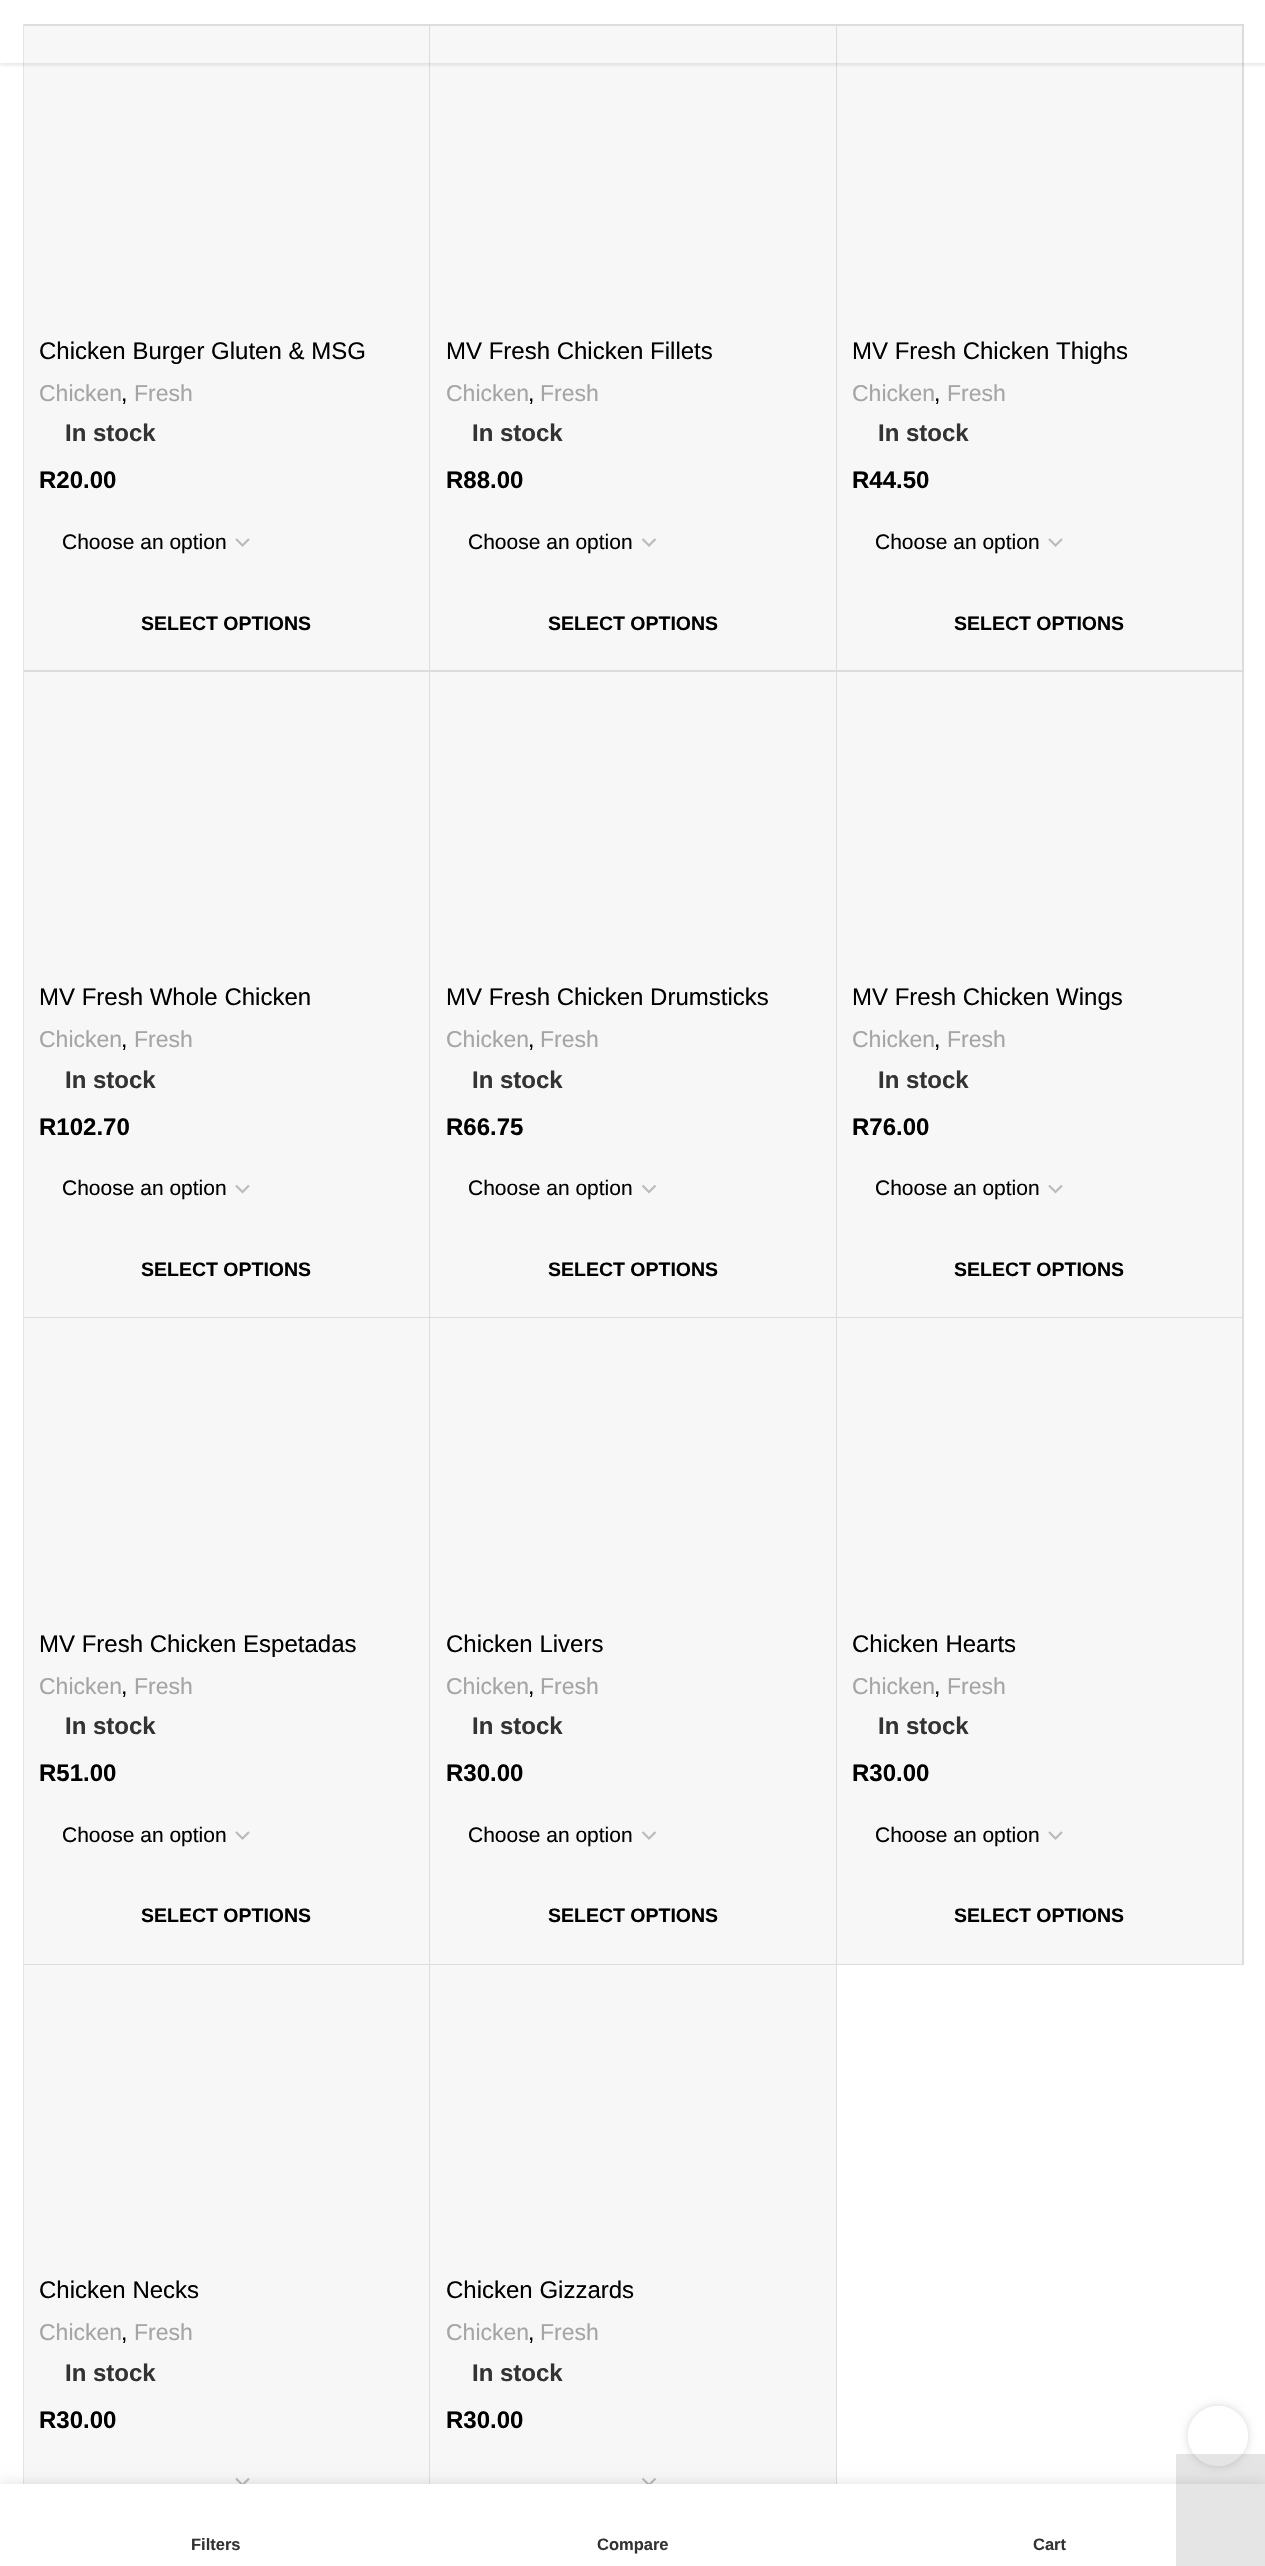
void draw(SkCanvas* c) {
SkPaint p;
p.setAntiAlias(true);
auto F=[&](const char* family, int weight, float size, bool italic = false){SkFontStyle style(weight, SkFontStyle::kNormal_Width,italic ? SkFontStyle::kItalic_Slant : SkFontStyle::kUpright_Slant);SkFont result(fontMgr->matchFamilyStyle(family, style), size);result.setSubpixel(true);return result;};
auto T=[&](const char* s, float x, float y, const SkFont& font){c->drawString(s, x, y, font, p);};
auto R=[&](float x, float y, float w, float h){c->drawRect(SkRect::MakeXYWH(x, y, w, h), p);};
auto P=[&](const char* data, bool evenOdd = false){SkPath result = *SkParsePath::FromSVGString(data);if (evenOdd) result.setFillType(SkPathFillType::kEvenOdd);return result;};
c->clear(0xffffffff);
p.setColor(0xffe4e4e4);
R(23,24,1,2460);
p.setColor(0xfff7f7f7);
R(24,24,1220,648);
p.setColor(0xffdddddd);
c->drawPath(P("M24 24h406l-1 2h-405z"),p);
p.setColor(0x1c000000);
c->drawPath(P("M430 24v648l-1-2v-644z"),p);
p.setColor(0xffdddddd);
c->drawPath(P("M430 24h407l-1 2h-406z"),p);
p.setColor(0x1c000000);
c->drawPath(P("M837 24v648l-1-2v-644z"),p);
p.setColor(0xffdddddd);
c->drawPath(P("M837 24h407l-2 2h-405z"),p);
p.setColor(0x1c000000);
c->drawPath(P("M1244 24v648l-2-2v-644z"),p);
c->save();
c->clipRect(SkRect::MakeXYWH(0,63,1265,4));
p.setColor(0x1a000000);
p.setMaskFilter(SkMaskFilter::MakeBlur(kNormal_SkBlurStyle, 2));
c->drawRect(SkRect::MakeXYWH(0,2,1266,63),p);
p.setMaskFilter(nullptr);
c->restore();
p.setColor(0x1c000000);
c->drawPath(P("M430 672h-406v-2h405z"),p);
auto f1 = F("Liberation Sans",400,24);
p.setColor(0xff000000);
T("Chicken Burger Gluten & MSG",39,359,f1);
auto f2 = F("Liberation Sans",400,23);
p.setColor(0xffa5a5a5);
T("Chicken",39,401,f2);
p.setColor(0xff000000);
T(",",121,401,f2);
p.setColor(0xffa5a5a5);
T("Fresh",134,401,f2);
auto f3 = F("Liberation Sans",700,24);
p.setColor(0xff333333);
T("In stock",65,441,f3);
p.setColor(0xff000000);
T("R20.00",39,488,f3);
p.setStroke(true);
p.setStrokeWidth(2.2);
p.setColor(0xffbbbbbb);
c->drawPath(P("M236 539l6.5 6.5l6.5-6.5"),p);
auto f4 = F("Liberation Sans",400,21);
p.setStroke(false);
p.setColor(0xff000000);
T("Choose an option",62,549,f4);
auto f5 = F("Liberation Sans",700,19.5);
T("SELECT OPTIONS",141,630,f5);
p.setColor(0x1c000000);
c->drawPath(P("M837 672h-407v-2h406z"),p);
p.setColor(0xff000000);
T("MV Fresh Chicken Fillets",446,359,f1);
p.setColor(0xffa5a5a5);
T("Chicken",446,401,f2);
p.setColor(0xff000000);
T(",",528,401,f2);
p.setColor(0xffa5a5a5);
T("Fresh",540,401,f2);
p.setColor(0xff333333);
T("In stock",472,441,f3);
p.setColor(0xff000000);
T("R88.00",446,488,f3);
p.setStroke(true);
p.setColor(0xffbbbbbb);
c->drawPath(P("M642.5 539l6.5 6.5l6.5-6.5"),p);
p.setStroke(false);
p.setColor(0xff000000);
T("Choose an option",468,549,f4);
T("SELECT OPTIONS",548,630,f5);
p.setColor(0x1c000000);
c->drawPath(P("M1244 672h-407v-2h405z"),p);
p.setColor(0xff000000);
T("MV Fresh Chicken Thighs",852,359,f1);
p.setColor(0xffa5a5a5);
T("Chicken",852,401,f2);
p.setColor(0xff000000);
T(",",934,401,f2);
p.setColor(0xffa5a5a5);
T("Fresh",947,401,f2);
p.setColor(0xff333333);
T("In stock",878,441,f3);
p.setColor(0xff000000);
T("R44.50",852,488,f3);
p.setStroke(true);
p.setColor(0xffbbbbbb);
c->drawPath(P("M1049 539l6.5 6.5l6.5-6.5"),p);
p.setStroke(false);
p.setColor(0xff000000);
T("Choose an option",875,549,f4);
T("SELECT OPTIONS",954,630,f5);
p.setColor(0xfff7f7f7);
R(24,672,1220,647);
p.setColor(0xffdddddd);
c->drawPath(P("M430 672v646l-1-1v-645z"),p);
p.setColor(0x1c000000);
c->drawPath(P("M430 1318h-406v-1h405z"),p);
p.setColor(0xff000000);
T("MV Fresh Whole Chicken",39,1005,f1);
p.setColor(0xffa5a5a5);
T("Chicken",39,1047,f2);
p.setColor(0xff000000);
T(",",121,1047,f2);
p.setColor(0xffa5a5a5);
T("Fresh",134,1047,f2);
p.setColor(0xff333333);
T("In stock",65,1088,f3);
p.setColor(0xff000000);
T("R102.70",39,1135,f3);
p.setStroke(true);
p.setColor(0xffbbbbbb);
c->drawPath(P("M236 1185.5l6.5 6.5l6.5-6.5"),p);
p.setStroke(false);
p.setColor(0xff000000);
T("Choose an option",62,1195,f4);
T("SELECT OPTIONS",141,1276,f5);
p.setColor(0xffdddddd);
c->drawPath(P("M837 672v646l-1-1v-645z"),p);
p.setColor(0x1c000000);
c->drawPath(P("M837 1318h-407v-1h406z"),p);
p.setColor(0xff000000);
T("MV Fresh Chicken Drumsticks",446,1005,f1);
p.setColor(0xffa5a5a5);
T("Chicken",446,1047,f2);
p.setColor(0xff000000);
T(",",528,1047,f2);
p.setColor(0xffa5a5a5);
T("Fresh",540,1047,f2);
p.setColor(0xff333333);
T("In stock",472,1088,f3);
p.setColor(0xff000000);
T("R66.75",446,1135,f3);
p.setStroke(true);
p.setColor(0xffbbbbbb);
c->drawPath(P("M642.5 1185.5l6.5 6.5l6.5-6.5"),p);
p.setStroke(false);
p.setColor(0xff000000);
T("Choose an option",468,1195,f4);
T("SELECT OPTIONS",548,1276,f5);
p.setColor(0xffdddddd);
c->drawPath(P("M1244 672v646l-2-1v-645z"),p);
p.setColor(0x1c000000);
c->drawPath(P("M1244 1318h-407v-1h405z"),p);
p.setColor(0xff000000);
T("MV Fresh Chicken Wings",852,1005,f1);
p.setColor(0xffa5a5a5);
T("Chicken",852,1047,f2);
p.setColor(0xff000000);
T(",",934,1047,f2);
p.setColor(0xffa5a5a5);
T("Fresh",947,1047,f2);
p.setColor(0xff333333);
T("In stock",878,1088,f3);
p.setColor(0xff000000);
T("R76.00",852,1135,f3);
p.setStroke(true);
p.setColor(0xffbbbbbb);
c->drawPath(P("M1049 1185.5l6.5 6.5l6.5-6.5"),p);
p.setStroke(false);
p.setColor(0xff000000);
T("Choose an option",875,1195,f4);
T("SELECT OPTIONS",954,1276,f5);
p.setColor(0xfff7f7f7);
R(24,1319,1220,646);
p.setColor(0xffdddddd);
c->drawPath(P("M430 1318v647l-1-1v-646z"),p);
p.setColor(0x1c000000);
c->drawPath(P("M430 1965h-406v-1h405z"),p);
p.setColor(0xff000000);
T("MV Fresh Chicken Espetadas",39,1652,f1);
p.setColor(0xffa5a5a5);
T("Chicken",39,1694,f2);
p.setColor(0xff000000);
T(",",121,1694,f2);
p.setColor(0xffa5a5a5);
T("Fresh",134,1694,f2);
p.setColor(0xff333333);
T("In stock",65,1734,f3);
p.setColor(0xff000000);
T("R51.00",39,1781,f3);
p.setStroke(true);
p.setColor(0xffbbbbbb);
c->drawPath(P("M236 1832l6.5 6.5l6.5-6.5"),p);
p.setStroke(false);
p.setColor(0xff000000);
T("Choose an option",62,1842,f4);
T("SELECT OPTIONS",141,1922,f5);
p.setColor(0xffdddddd);
c->drawPath(P("M837 1318v647l-1-1v-646z"),p);
p.setColor(0x1c000000);
c->drawPath(P("M837 1965h-407v-1h406z"),p);
p.setColor(0xff000000);
T("Chicken Livers",446,1652,f1);
p.setColor(0xffa5a5a5);
T("Chicken",446,1694,f2);
p.setColor(0xff000000);
T(",",528,1694,f2);
p.setColor(0xffa5a5a5);
T("Fresh",540,1694,f2);
p.setColor(0xff333333);
T("In stock",472,1734,f3);
p.setColor(0xff000000);
T("R30.00",446,1781,f3);
p.setStroke(true);
p.setColor(0xffbbbbbb);
c->drawPath(P("M642.5 1832l6.5 6.5l6.5-6.5"),p);
p.setStroke(false);
p.setColor(0xff000000);
T("Choose an option",468,1842,f4);
T("SELECT OPTIONS",548,1922,f5);
p.setColor(0xffdddddd);
c->drawPath(P("M1244 1318v647l-2-1v-646z"),p);
p.setColor(0x1c000000);
c->drawPath(P("M1244 1965h-407v-1h405z"),p);
p.setColor(0xff000000);
T("Chicken Hearts",852,1652,f1);
p.setColor(0xffa5a5a5);
T("Chicken",852,1694,f2);
p.setColor(0xff000000);
T(",",934,1694,f2);
p.setColor(0xffa5a5a5);
T("Fresh",947,1694,f2);
p.setColor(0xff333333);
T("In stock",878,1734,f3);
p.setColor(0xff000000);
T("R30.00",852,1781,f3);
p.setStroke(true);
p.setColor(0xffbbbbbb);
c->drawPath(P("M1049 1832l6.5 6.5l6.5-6.5"),p);
p.setStroke(false);
p.setColor(0xff000000);
T("Choose an option",875,1842,f4);
T("SELECT OPTIONS",954,1922,f5);
p.setColor(0xfff7f7f7);
R(24,1965,812,519);
p.setColor(0xffdddddd);
c->drawPath(P("M430 1965v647l-1-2v-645z"),p);
p.setColor(0xff000000);
T("Chicken Necks",39,2298,f1);
p.setColor(0xffa5a5a5);
T("Chicken",39,2340,f2);
p.setColor(0xff000000);
T(",",121,2340,f2);
p.setColor(0xffa5a5a5);
T("Fresh",134,2340,f2);
p.setColor(0xff333333);
T("In stock",65,2381,f3);
p.setColor(0xff000000);
T("R30.00",39,2428,f3);
p.setStroke(true);
p.setColor(0xffbbbbbb);
c->drawPath(P("M236 2478.5l6.5 6.5l6.5-6.5"),p);
p.setStroke(false);
p.setColor(0xffdddddd);
c->drawPath(P("M837 1965v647l-1-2v-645z"),p);
p.setColor(0xff000000);
T("Chicken Gizzards",446,2298,f1);
p.setColor(0xffa5a5a5);
T("Chicken",446,2340,f2);
p.setColor(0xff000000);
T(",",528,2340,f2);
p.setColor(0xffa5a5a5);
T("Fresh",540,2340,f2);
p.setColor(0xff333333);
T("In stock",472,2381,f3);
p.setColor(0xff000000);
T("R30.00",446,2428,f3);
p.setStroke(true);
p.setColor(0xffbbbbbb);
c->drawPath(P("M642.5 2478.5l6.5 6.5l6.5-6.5"),p);
c->save();
c->clipPath(P("M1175 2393h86v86h-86zm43 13c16.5 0 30 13.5 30 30c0 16.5-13.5 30-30 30c-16.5 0-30-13.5-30-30c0-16.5 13.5-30 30-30z",true),true);
p.setStroke(false);
p.setColor(0x2b000000);
p.setMaskFilter(SkMaskFilter::MakeBlur(kNormal_SkBlurStyle, 4));
c->drawRoundRect(SkRect::MakeXYWH(1188,2406,60,60),30,30,p);
p.setMaskFilter(nullptr);
c->restore();
p.setColor(0xe6ffffff);
c->drawCircle(1218,2436,30,p);
p.setColor(0x1f000000);
p.setMaskFilter(SkMaskFilter::MakeBlur(kNormal_SkBlurStyle, 7));
c->drawRect(SkRect::MakeXYWH(0,2484,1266,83),p);
p.setMaskFilter(nullptr);
p.setColor(0xffffffff);
R(0,2484,1265,82);
auto f6 = F("Liberation Sans",700,16.5);
p.setColor(0xff333333);
T("Filters",191,2550,f6);
T("Compare",597,2550,f6);
T("Cart",1033,2550,f6);
p.setColor(0x1a000000);
R(1176,2454,89,112);
}
